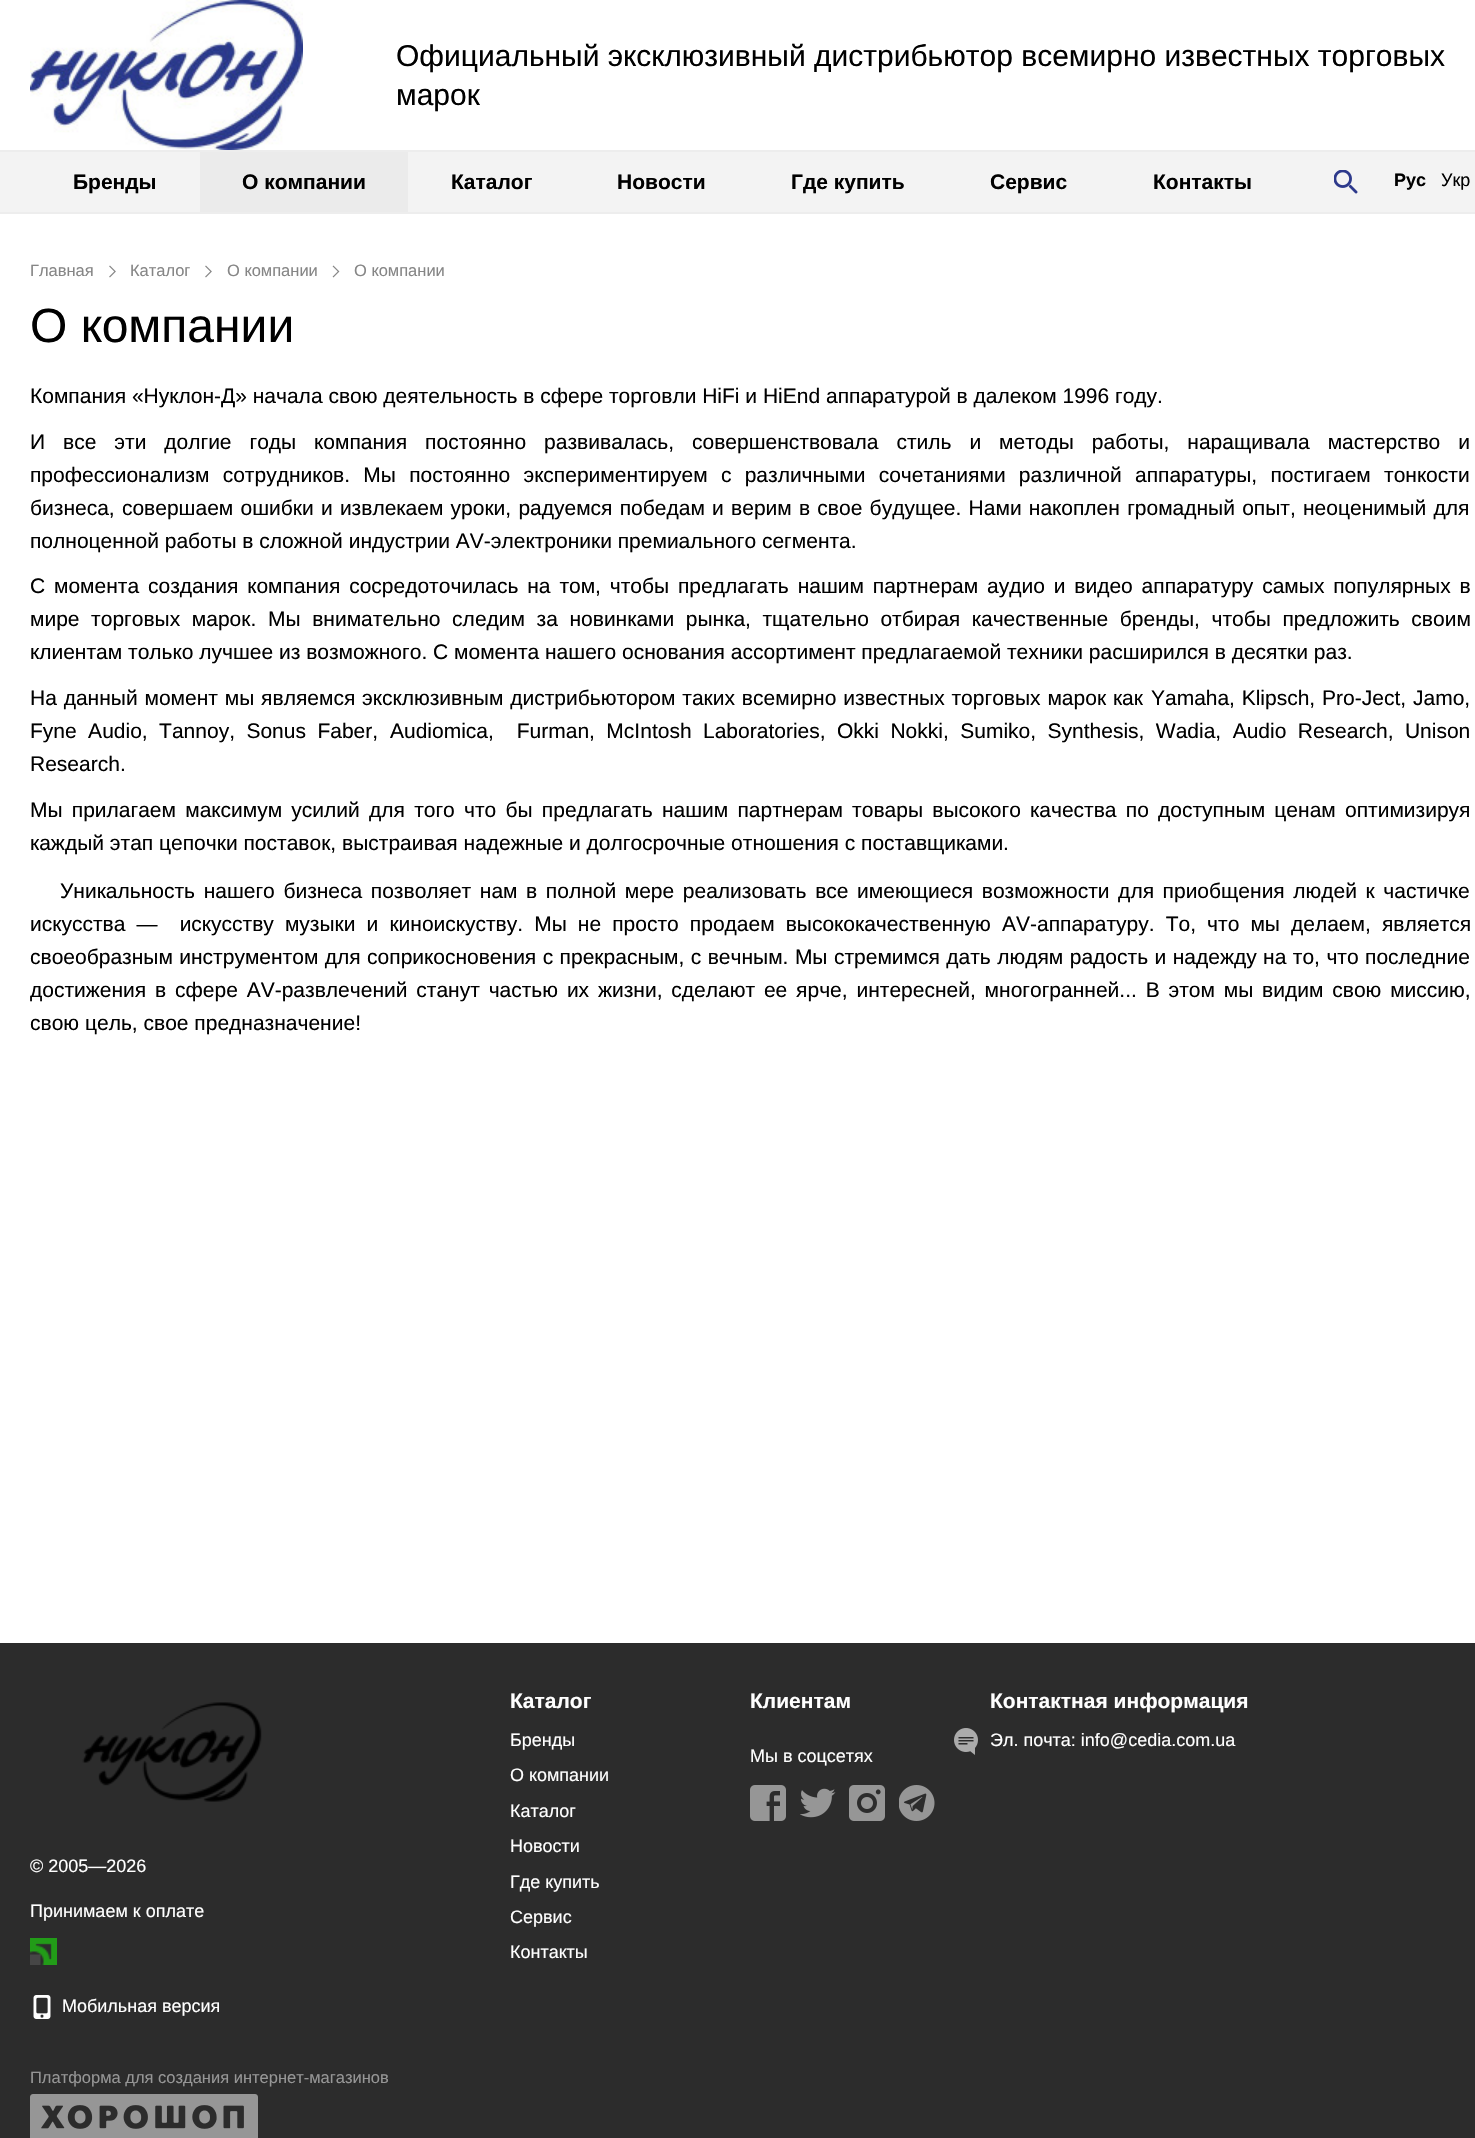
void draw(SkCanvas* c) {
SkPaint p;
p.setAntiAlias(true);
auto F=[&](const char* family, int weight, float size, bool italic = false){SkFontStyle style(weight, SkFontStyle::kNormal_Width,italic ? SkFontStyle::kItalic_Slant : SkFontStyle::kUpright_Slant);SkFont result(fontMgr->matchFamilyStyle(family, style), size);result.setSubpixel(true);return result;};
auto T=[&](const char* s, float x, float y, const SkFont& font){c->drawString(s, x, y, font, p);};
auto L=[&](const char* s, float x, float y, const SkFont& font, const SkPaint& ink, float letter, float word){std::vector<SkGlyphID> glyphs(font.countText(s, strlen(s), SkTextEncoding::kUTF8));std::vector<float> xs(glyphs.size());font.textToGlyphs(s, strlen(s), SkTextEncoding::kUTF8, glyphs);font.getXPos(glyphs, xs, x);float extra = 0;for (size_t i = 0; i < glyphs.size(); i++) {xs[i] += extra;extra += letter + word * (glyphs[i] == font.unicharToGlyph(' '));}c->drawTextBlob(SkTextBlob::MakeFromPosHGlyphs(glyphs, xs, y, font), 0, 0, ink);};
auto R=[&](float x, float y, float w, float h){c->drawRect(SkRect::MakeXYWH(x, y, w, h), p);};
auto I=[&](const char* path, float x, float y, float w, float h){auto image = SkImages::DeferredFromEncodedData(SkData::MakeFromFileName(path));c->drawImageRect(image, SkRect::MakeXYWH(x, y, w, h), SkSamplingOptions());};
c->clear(0xffffffff);
I("1.png",30,0,273,150);
auto f1 = F("Liberation Sans",400,30);
p.setColor(0xff000000);
T("Официальный эксклюзивный дистрибьютор всемирно известных торговых",396,66,f1);
T("марок",396,105,f1);
p.setColor(0xfff3f3f3);
R(0,152,1475,60);
p.setColor(0xffededed);
R(0,150,1475,2);
R(0,212,1475,2);
auto f2 = F("Liberation Sans",700,21);
p.setColor(0xff000000);
T("Бренды",73,189,f2);
p.setColor(0xffebebeb);
R(200,152,208,60);
p.setColor(0xff000000);
T("О компании",242,189,f2);
T("Каталог",451,189,f2);
T("Новости",617,189,f2);
T("Где купить",791,189,f2);
T("Сервис",990,189,f2);
T("Контакты",1153,189,f2);
I("2.png",1334,170,24,24);
auto f3 = F("Liberation Sans",700,18);
T("Рус",1394,186,f3);
auto f4 = F("Liberation Sans",400,18);
T("Укр",1441,186,f4);
auto f5 = F("Liberation Sans",400,16.5);
p.setColor(0xff868686);
T("Главная",30,276,f5);
I("3.png",109,265,7,13);
T("Каталог",130,276,f5);
I("3.png",205,265,7,13);
T("О компании",227,276,f5);
I("4.png",332,265,8,13);
T("О компании",354,276,f5);
auto f6 = F("Liberation Sans",400,48);
p.setColor(0xff000000);
T("О компании",30,342,f6);
auto f7 = F("Liberation Sans",400,21);
T("Компания «Нуклон-Д» начала свою деятельность в сфере торговли HiFi и HiEnd аппаратурой в далеком 1996 году.",30,403,f7);
L("И все эти долгие годы компания постоянно развивалась, совершенствовала стиль и методы работы, наращивала мастерство и",30,449,f7,p,0,12.1);
L("профессионализм сотрудников. Мы постоянно экспериментируем с различными сочетаниями различной аппаратуры, постигаем тонкости",30,482,f7,p,0,7.4);
L("бизнеса, совершаем ошибки и извлекаем уроки, радуемся победам и верим в свое будущее. Нами накоплен громадный опыт, неоценимый для",30,515,f7,p,0,1.4);
T("полноценной работы в сложной индустрии AV-электроники премиального сегмента.",30,548,f7);
L("С момента создания компания сосредоточилась на том, чтобы предлагать нашим партнерам аудио и видео аппаратуру самых популярных в",30,593,f7,p,0,3);
L("мире торговых марок.",30,626,f7,p,0,5.75);
L("Мы внимательно следим за новинками рынка, тщательно отбирая качественные бренды, чтобы предложить своим",268,626,f7,p,0,5.75);
T("клиентам только лучшее из возможного. С момента нашего основания ассортимент предлагаемой техники расширился в десятки раз.",30,659,f7);
L("На данный момент мы являемся эксклюзивным дистрибьютором таких всемирно известных торговых марок как",30,705,f7,p,0,1);
T("Yamaha",1151,705,f7);
L(", Klipsch, Pro-Ject,",1229,705,f7,p,0,1);
T("Jamo,",1413,705,f7);
L("Fyne Audio, Tannoy, Sonus Faber,",30,738,f7,p,0,5.6);
L("Audiomica,  Furman, McIntosh Laboratories, Okki Nokki, Sumiko, Synthesis, Wadia, Audio Research, Unison",390,738,f7,p,0,5.6);
T("Research.",30,771,f7);
L("Мы прилагаем максимум усилий для того что бы предлагать нашим партнерам товары высокого качества по доступным ценам оптимизируя",30,817,f7,p,0,3.4);
T("каждый этап цепочки поставок, выстраивая надежные и долгосрочные отношения с поставщиками.",30,850,f7);
L("Уникальность нашего бизнеса позволяет нам в полной мере реализовать все имеющиеся возможности для приобщения людей к частичке",60,898,f7,p,0,2.75);
L("искусства ―  искусству музыки и киноискуству. Мы не просто продаем высококачественную AV-аппаратуру. То, что мы делаем, является",30,931,f7,p,0,5.25);
L("своеобразным инструментом для соприкосновения с прекрасным, с вечным. Мы стремимся дать людям радость и надежду на то, что последние",30,964,f7,p,0,.6);
L("достижения в сфере AV-развлечений станут частью их жизни, сделают ее ярче, интересней, многогранней... В этом мы видим свою миссию,",30,997,f7,p,0,3);
T("свою цель, свое предназначение!",30,1030,f7);
p.setColor(0xff2c2c2c);
R(0,1643,1475,495);
I("5.png",82,1702,180,100);
p.setColor(0xffffffff);
T("© 2005—2026",30,1872,f4);
T("Принимаем к оплате",30,1917,f4);
I("6.png",30,1938,27,27);
I("7.png",33,1995,18,24);
T("Мобильная версия",62,2012,f4);
T("Каталог",510,1708,f2);
T("Бренды",510,1746,f4);
T("О компании",510,1781,f4);
T("Каталог",510,1817,f4);
T("Новости",510,1852,f4);
T("Где купить",510,1888,f4);
T("Сервис",510,1923,f4);
T("Контакты",510,1958,f4);
T("Клиентам",750,1708,f2);
T("Мы в соцсетях",750,1762,f4);
I("8.png",750,1785,36,36);
I("9.png",800,1788,36,30);
I("10.png",849,1785,36,36);
I("11.png",899,1785,36,36);
T("Контактная информация",990,1708,f2);
I("12.png",954,1728,24,27);
T("Эл. почта: info@cedia.com.ua",990,1746,f4);
p.setColor(0xff969696);
T("Платформа для создания интернет-магазинов",30,2083,f5);
I("13.png",30,2094,228,44);
}
